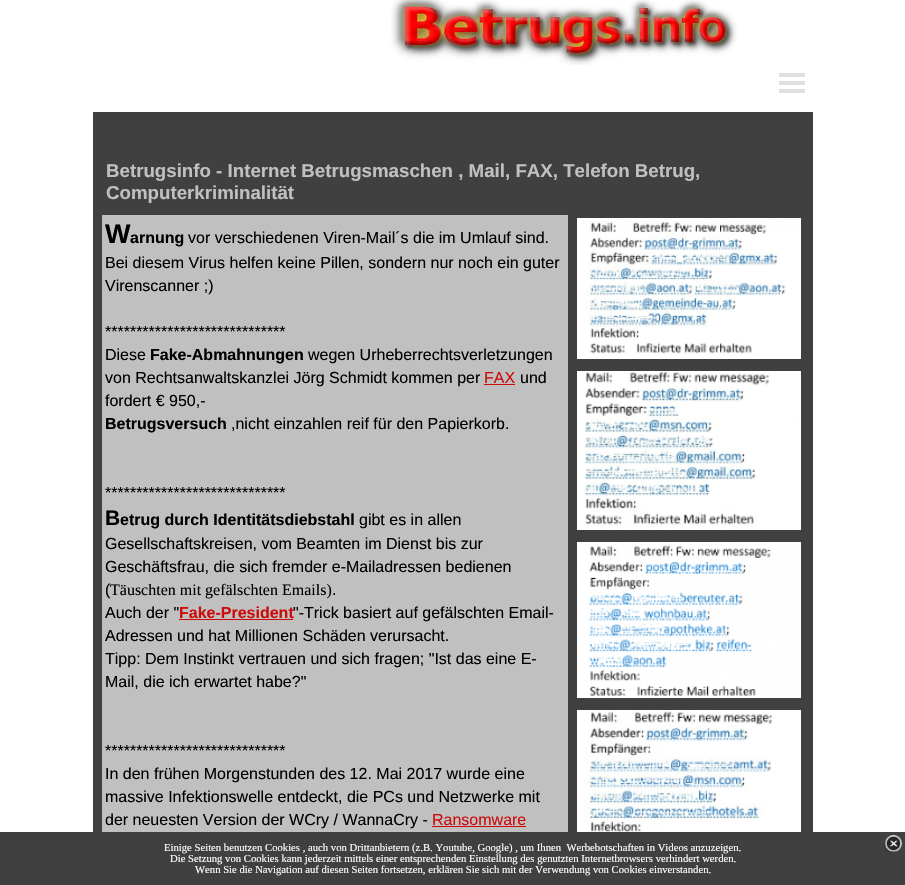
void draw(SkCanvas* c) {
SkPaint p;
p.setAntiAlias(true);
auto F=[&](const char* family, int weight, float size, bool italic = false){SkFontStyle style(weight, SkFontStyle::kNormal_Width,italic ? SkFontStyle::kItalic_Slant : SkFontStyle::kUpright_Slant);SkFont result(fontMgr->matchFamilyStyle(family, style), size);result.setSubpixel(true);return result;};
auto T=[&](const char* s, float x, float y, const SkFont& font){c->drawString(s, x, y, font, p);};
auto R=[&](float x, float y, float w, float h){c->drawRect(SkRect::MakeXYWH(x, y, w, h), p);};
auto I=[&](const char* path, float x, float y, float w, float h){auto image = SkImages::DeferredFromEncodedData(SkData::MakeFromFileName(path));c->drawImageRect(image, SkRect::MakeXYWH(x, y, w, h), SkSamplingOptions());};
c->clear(0xffffffff);
I("1.png",391,0,346,65);
p.setColor(0xffe0e0e0);
R(779,73,26,4);
R(779,81,26,4);
R(779,89,26,4);
p.setColor(0xff404040);
R(93,112,720,720);
auto f1 = F("Liberation Sans",700,18.7);
p.setColor(0xffc0c0c0);
T("Betrugsinfo - Internet Betrugsmaschen , Mail, FAX, Telefon Betrug,",106,177,f1);
T("Computerkriminalität",106,199,f1);
R(102,215,466,617);
auto f2 = F("Liberation Sans",700,27);
p.setColor(0xff000000);
T("W",105,243,f2);
auto f3 = F("Liberation Sans",700,16);
T("arnung",130,243,f3);
auto f4 = F("Liberation Sans",400,16);
T("vor verschiedenen Viren-Mail´s die im Umlauf sind.",188,243,f4);
T("Bei diesem Virus helfen keine Pillen, sondern nur noch ein guter",105,268,f4);
T("Virenscanner ;)",105,291,f4);
T("*****************************",105,337,f4);
T("Diese",105,360,f4);
T("Fake-Abmahnungen",150,360,f3);
T("wegen Urheberrechtsverletzungen",308,360,f4);
T("von Rechtsanwaltskanzlei Jörg Schmidt kommen per",105,383,f4);
p.setColor(0xffcc0c0b);
T("FAX",484,383,f4);
R(484,384,31,1);
p.setColor(0xff000000);
T("und",520,383,f4);
T("fordert € 950,-",105,406,f4);
T("Betrugsversuch",105,429,f3);
T(",nicht einzahlen reif für den Papierkorb.",231,429,f4);
T("*****************************",105,498,f4);
auto f5 = F("Liberation Sans",700,21);
T("B",105,525,f5);
T("etrug durch Identitätsdiebstahl",120,525,f3);
T("gibt es in allen",359,525,f4);
T("Gesellschaftskreisen, vom Beamten im Dienst bis zur",105,549,f4);
T("Geschäftsfrau, die sich fremder e-Mailadressen bedienen",105,572,f4);
T("(",105,595,f4);
auto f6 = F("Liberation Serif",400,16);
T("Täuschten mit gefälschten Emails)",110,595,f6);
T(".",332,595,f4);
T("Auch der \"",105,618,f4);
p.setColor(0xffcc0c0b);
T("Fake-President",179,618,f3);
p.setColor(0xff000000);
T("\"-Trick basiert auf gefälschten Email-",293,618,f4);
p.setColor(0xffcc0c0b);
R(179,619,114,1);
p.setColor(0xff000000);
T("Adressen und hat Millionen Schäden verursacht.",105,641,f4);
T("Tipp: Dem Instinkt vertrauen und sich fragen; \"Ist das eine E-",105,664,f4);
T("Mail, die ich erwartet habe?\"",105,687,f4);
T("*****************************",105,756,f4);
T("In den frühen Morgenstunden des 12. Mai 2017 wurde eine",105,779,f4);
T("massive Infektionswelle entdeckt, die PCs und Netzwerke mit",105,802,f4);
T("der neuesten Version der WCry / WannaCry -",105,825,f4);
p.setColor(0xffcc0c0b);
T("Ransomware",432,825,f4);
R(432,826,94,1);
I("2.png",577,218,224,141);
I("3.png",577,371,224,159);
I("4.png",577,542,224,156);
I("5.png",577,710,224,122);
p.setColor(0xff404040);
R(0,832,905,53);
auto f7 = F("Liberation Serif",400,10.67);
p.setColor(0xffffffff);
T("Einige Seiten benutzen Cookies , auch von Drittanbietern (z.B. Youtube, Google) , um Ihnen  Werbebotschaften in Videos anzuzeigen.",164,851,f7);
T("Die Setzung von Cookies kann jederzeit mittels einer entsprechenden Einstellung des genutzten Internetbrowsers verhindert werden.",170,862,f7);
T("Wenn Sie die Navigation auf diesen Seiten fortsetzen, erklären Sie sich mit der Verwendung von Cookies einverstanden.",195,873,f7);
I("6.png",884,835,19,18);
}
